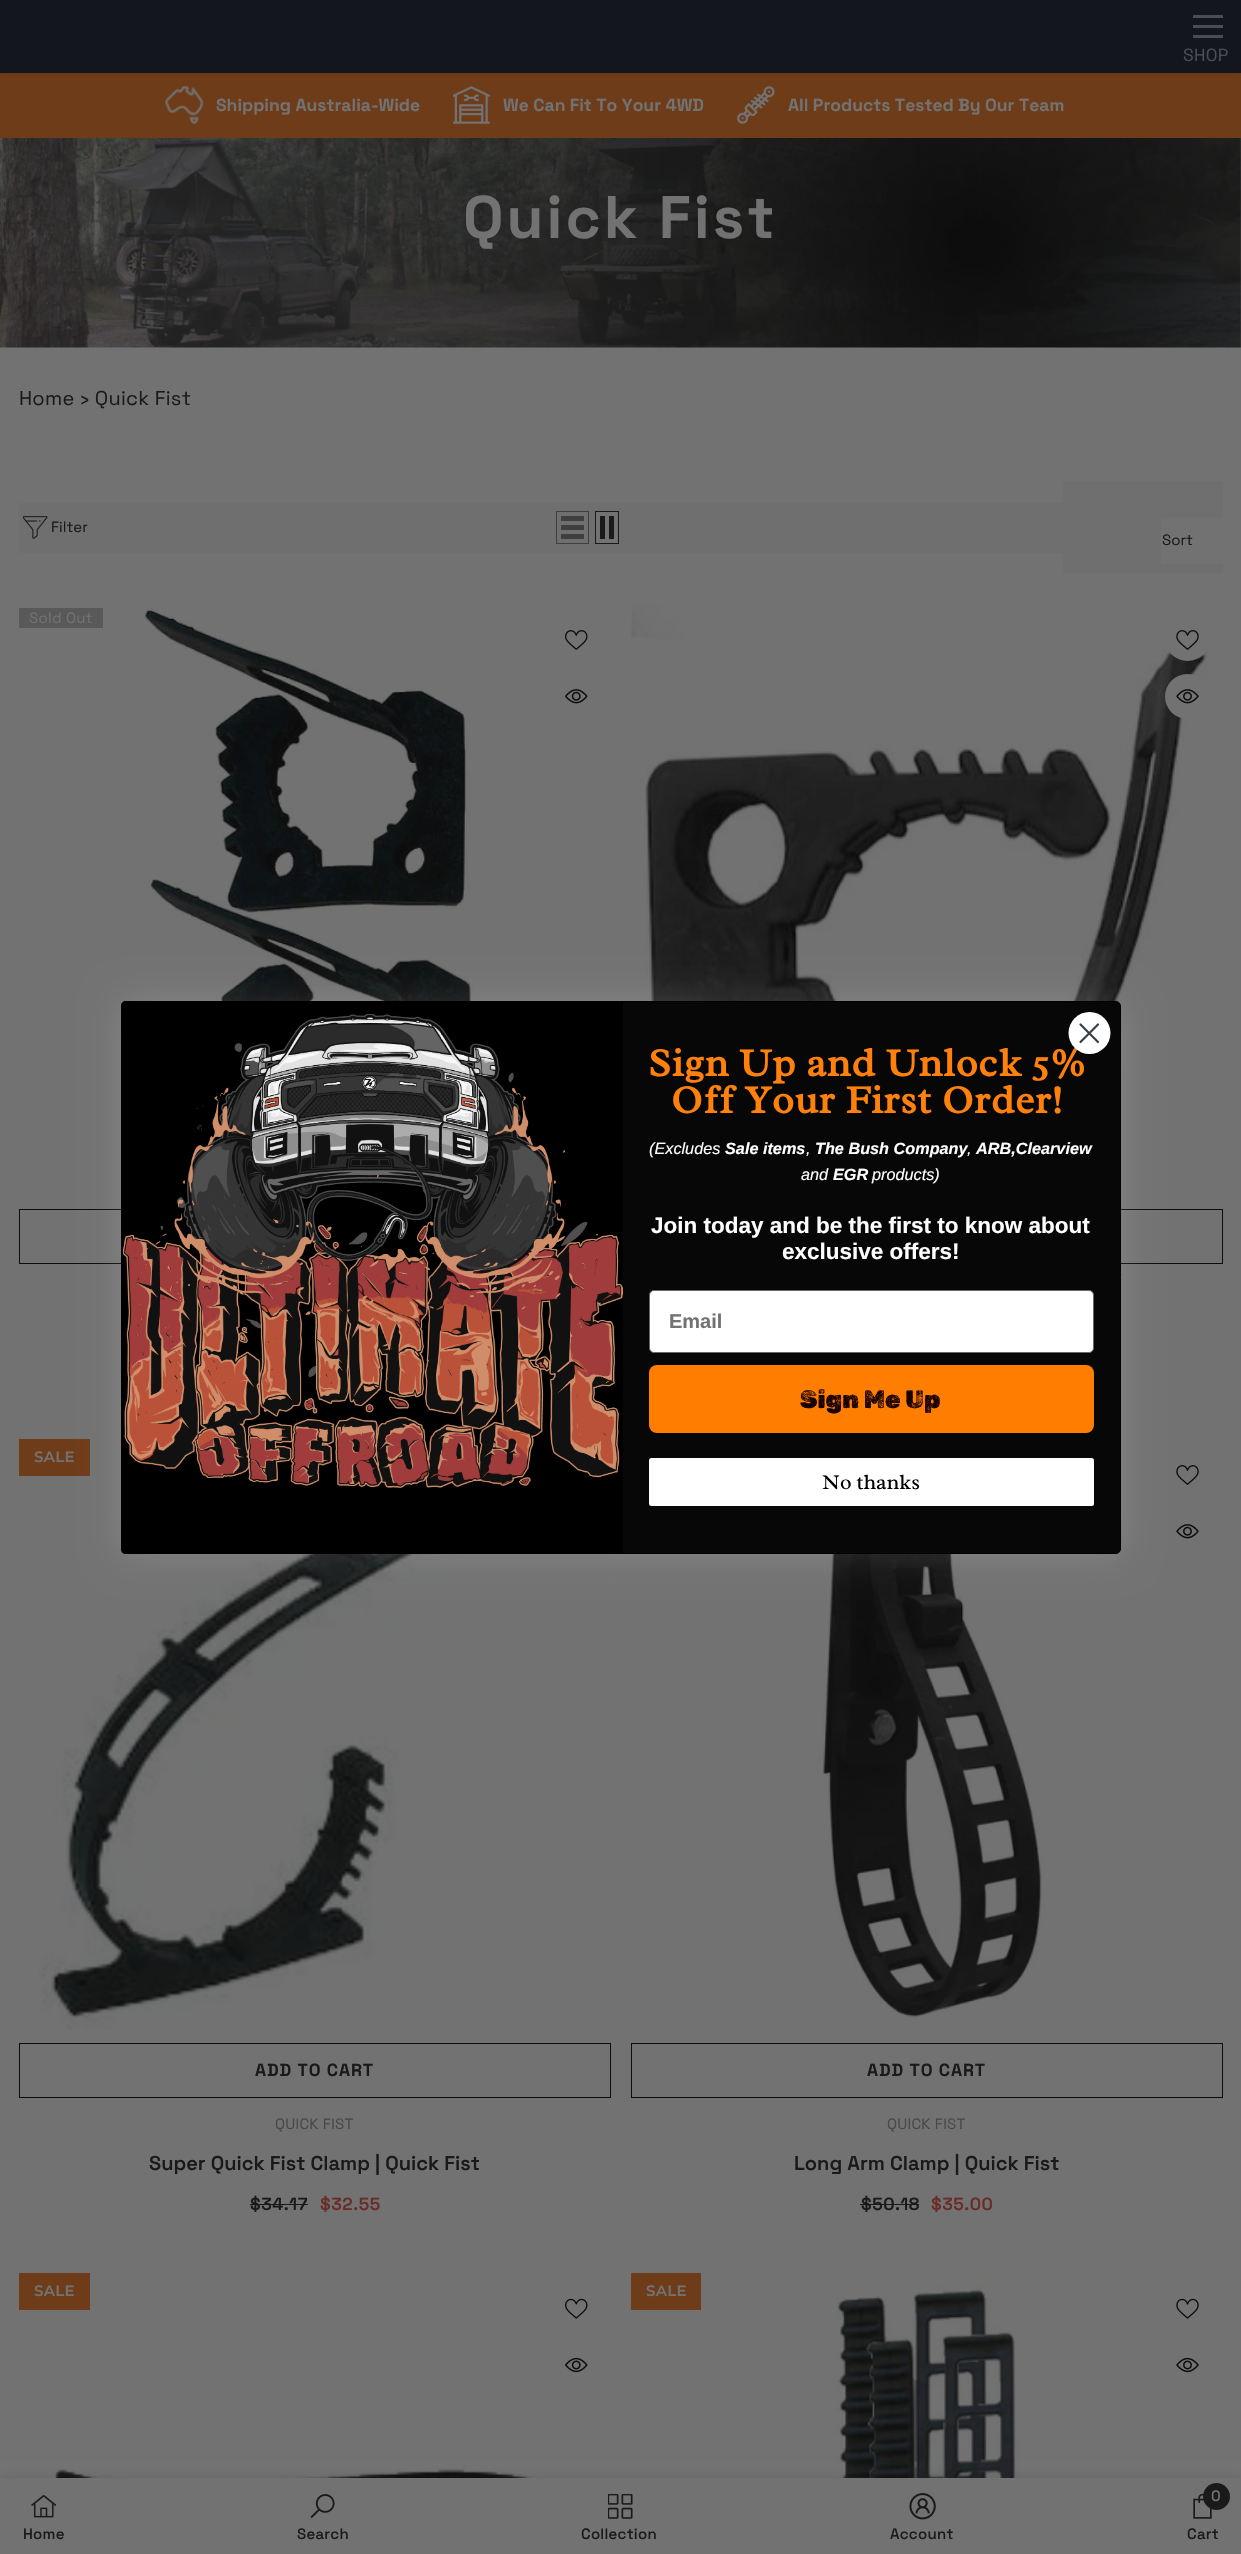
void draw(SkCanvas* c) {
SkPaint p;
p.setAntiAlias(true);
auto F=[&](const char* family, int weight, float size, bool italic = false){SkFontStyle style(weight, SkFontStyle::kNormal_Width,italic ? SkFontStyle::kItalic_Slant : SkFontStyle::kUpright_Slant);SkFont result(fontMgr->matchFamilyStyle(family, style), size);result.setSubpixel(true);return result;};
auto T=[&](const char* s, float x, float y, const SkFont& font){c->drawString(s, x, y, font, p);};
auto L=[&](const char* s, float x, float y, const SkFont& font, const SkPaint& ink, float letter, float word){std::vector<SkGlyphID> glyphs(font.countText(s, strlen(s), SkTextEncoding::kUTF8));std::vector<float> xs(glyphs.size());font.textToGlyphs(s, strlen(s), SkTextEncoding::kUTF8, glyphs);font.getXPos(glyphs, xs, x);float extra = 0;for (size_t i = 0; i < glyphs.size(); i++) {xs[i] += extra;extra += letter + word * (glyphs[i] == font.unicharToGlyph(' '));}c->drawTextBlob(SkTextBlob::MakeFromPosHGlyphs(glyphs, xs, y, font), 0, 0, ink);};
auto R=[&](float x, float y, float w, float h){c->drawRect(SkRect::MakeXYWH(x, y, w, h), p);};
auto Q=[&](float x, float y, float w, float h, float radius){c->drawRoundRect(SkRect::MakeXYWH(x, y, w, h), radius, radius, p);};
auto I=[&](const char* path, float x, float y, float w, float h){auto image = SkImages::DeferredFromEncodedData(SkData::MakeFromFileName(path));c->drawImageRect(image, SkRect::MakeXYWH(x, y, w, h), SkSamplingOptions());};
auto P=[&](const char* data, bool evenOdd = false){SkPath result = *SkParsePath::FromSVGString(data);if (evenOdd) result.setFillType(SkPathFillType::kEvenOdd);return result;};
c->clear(0xff727272);
p.setColor(0xff6e3c19);
R(0,73,1241,65);
p.setColor(0x1a0c0c0c);
p.setMaskFilter(SkMaskFilter::MakeBlur(kNormal_SkBlurStyle, 2));
c->drawRect(SkRect::MakeXYWH(0,1,1241,73),p);
p.setMaskFilter(nullptr);
p.setColor(0xff13161c);
R(0,0,1241,73);
p.setColor(0xff4a4d52);
R(1193,25,30,3);
R(1193,15,30,3);
R(1193,35,30,3);
auto f1 = F("Space Grotesk",400,17.5);
L("SHOP",1183,61,f1,p,.25,0);
I("1.png",165,86,39,38);
auto f2 = F("Space Grotesk",700,17.5);
p.setColor(0xff727272);
T("Shipping Australia-Wide",216,111,f2);
I("2.png",453,86,37,38);
T("We Can Fit To Your 4WD",503,111,f2);
I("3.png",737,86,38,38);
T("All Products Tested By Our Team",788,111,f2);
I("4.png",0,138,1241,210);
auto f3 = F("Space Grotesk",700,60);
L("Quick Fist",463,238,f3,p,3,0);
auto f4 = F("Space Grotesk",400,20);
p.setColor(0xff1a1a1a);
L("Home › Quick Fist",19,405,f4,p,.25,0);
p.setColor(0xff6f6f6f);
R(19,503,1044,50);
I("5.png",23,516,25,23);
auto f5 = F("Space Grotesk",400,15);
p.setColor(0xff1a1a1a);
T("Filter",51,532,f5);
p.setStroke(true);
p.setStrokeWidth(1);
p.setColor(0xff3f3f3f);
c->drawRect(SkRect::MakeXYWH(556.5,511.5,32,32),p);
p.setStroke(false);
R(561,534,23,5);
R(561,525,23,5);
R(561,516,23,5);
p.setColor(0xff727272);
c->drawRect(SkRect::MakeXYWH(595.5,511.5,23,32),p);
p.setStroke(true);
p.setColor(0xff1a1a1a);
c->drawRect(SkRect::MakeXYWH(595.5,511.5,23,32),p);
p.setStroke(false);
R(609,516,5,23);
R(600,516,5,23);
p.setColor(0xff6f6f6f);
R(1063,481,160,92);
p.setColor(0xff727272);
R(1161,518,62,46);
p.setColor(0xff1a1a1a);
T("Sort",1162,545,f5);
I("6.png",19,604,592,592);
p.setColor(0xff595959);
R(19,608,84,20);
p.setColor(0xff727272);
L("Sold Out",29,623,f5,p,.25,0);
I("7.png",565,630,23,20);
I("8.png",565,689,23,15);
p.setStroke(true);
p.setColor(0xff0c0c0c);
c->drawRect(SkRect::MakeXYWH(19.5,1209.5,591,54),p);
I("9.png",631,604,591,591);
p.setStroke(false);
p.setColor(0xff727272);
c->drawCircle(1187.5,638.5,22.5,p);
I("10.png",1176,630,23,20);
c->drawCircle(1187.5,696.5,22.5,p);
I("11.png",1176,689,23,15);
p.setStroke(true);
p.setColor(0xff0c0c0c);
c->drawRect(SkRect::MakeXYWH(631.5,1209.5,591,54),p);
I("12.png",19,1439,592,591);
p.setStroke(false);
p.setColor(0xff6e3c19);
R(19,1439,71,37);
auto f6 = F("Montserrat",600,15);
p.setColor(0xff727272);
L("SALE",34,1462,f6,p,.25,0);
p.setStroke(true);
p.setColor(0xff0c0c0c);
c->drawRect(SkRect::MakeXYWH(19.5,2043.5,591,54),p);
p.setStroke(false);
p.setColor(0xff1a1a1a);
L("ADD TO CART",255,2076,f2,p,.9,0);
p.setColor(0xff484848);
L("QUICK FIST",275,2129,f5,p,.25,0);
auto f7 = F("Space Grotesk",600,20);
p.setColor(0xff1a1a1a);
T("Super Quick Fist Clamp | Quick Fist",149,2170,f7);
auto f8 = F("Space Grotesk",600,17.5);
L("$34.17",250,2210,f8,p,.5,0);
R(250,2204,58,1);
p.setColor(0xff692c27);
L("$32.55",320,2210,f8,p,.5,0);
I("13.png",632,1439,590,591);
I("10.png",1176,1465,23,20);
I("11.png",1176,1524,23,15);
p.setStroke(true);
p.setColor(0xff0c0c0c);
c->drawRect(SkRect::MakeXYWH(631.5,2043.5,591,54),p);
p.setStroke(false);
p.setColor(0xff1a1a1a);
L("ADD TO CART",867,2076,f2,p,.9,0);
p.setColor(0xff484848);
L("QUICK FIST",887,2129,f5,p,.25,0);
p.setColor(0xff1a1a1a);
T("Long Arm Clamp | Quick Fist",794,2170,f7);
L("$50.18",861,2210,f8,p,.5,0);
R(860,2204,59,1);
p.setColor(0xff692c27);
L("$35.00",931,2210,f8,p,.5,0);
I("14.png",19,2273,592,205);
p.setColor(0xff6e3c19);
R(19,2273,71,37);
p.setColor(0xff727272);
L("SALE",34,2296,f6,p,.25,0);
I("15.png",565,2298,23,21);
I("16.png",565,2357,23,16);
I("17.png",631,2273,592,205);
p.setColor(0xff6e3c19);
R(631,2273,70,37);
p.setColor(0xff727272);
L("SALE",646,2296,f6,p,.25,0);
I("18.png",1176,2298,23,21);
I("19.png",1176,2357,23,16);
p.setColor(0x1f0c0c0c);
p.setMaskFilter(SkMaskFilter::MakeBlur(kNormal_SkBlurStyle, 5.5));
c->drawRect(SkRect::MakeXYWH(0,2478,1241,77),p);
p.setMaskFilter(nullptr);
p.setColor(0xff727272);
R(0,2478,1241,76);
I("20.png",31,2495,25,23);
auto f9 = F("Space Grotesk",500,15);
p.setColor(0xff1a1a1a);
L("Home",23,2539,f9,p,.25,0);
I("21.png",310,2494,25,25);
L("Search",297,2539,f9,p,.25,0);
I("22.png",608,2494,25,25);
L("Collection",581,2539,f9,p,.25,0);
I("23.png",909,2493,27,27);
L("Account",890,2539,f9,p,.25,0);
I("24.png",1193,2494,19,25);
c->drawCircle(1216.5,2496.5,13.5,p);
p.setColor(0xff727272);
T("0",1211,2501,f9);
p.setColor(0xff1a1a1a);
L("Cart",1187,2539,f9,p,.25,0);
p.setColor(0x26ffffff);
p.setMaskFilter(SkMaskFilter::MakeBlur(kNormal_SkBlurStyle, 19));
c->drawRoundRect(SkRect::MakeXYWH(121,1001,1000,553),5,5,p);
p.setMaskFilter(nullptr);
p.setColor(0xff070707);
c->drawRoundRect(SkRect::MakeXYWH(121.5,1001.5,999,552),4.5,4.5,p);
p.setStroke(true);
p.setColor(0xff000000);
c->drawRoundRect(SkRect::MakeXYWH(121.5,1001.5,999,552),4.5,4.5,p);
auto f10 = F("Radley",700,40);
p.setStroke(false);
p.setColor(0xffff810b);
L("Sign Up and Unlock 5%",648,1076,f10,p,.9,0);
p.setColor(0xffffffff);
c->drawCircle(1089.5,1033,21,p);
p.setStroke(true);
p.setStrokeWidth(2.2);
p.setStrokeCap(SkPaint::kRound_Cap);
p.setStrokeJoin(SkPaint::kRound_Join);
p.setColor(0xff373f47);
c->drawPath(P("M1080.5 1024.5l17.5 17.5m-17.5 0l17.5-17.5z"),p);
p.setStroke(false);
p.setColor(0xff000000);
c->drawPath(P("M126 1001h497v553h-497c-3 0-5-2-5-5v-543c0-3 2-5 5-5z"),p);
I("25.png",123,1014,500,474);
p.setColor(0xffff810b);
L("Off Your First Order!",671,1113,f10,p,.9,0);
auto f11 = F("Liberation Sans",400,16.25,true);
p.setColor(0xffffffff);
T("(Excludes",649,1154,f11);
auto f12 = F("Liberation Sans",700,16.25,true);
T("Sale items",725,1154,f12);
T(",",806,1154,f11);
T("The Bush Company",815,1154,f12);
T(",",967,1154,f11);
T("ARB,Clearview",976,1154,f12);
T("and",801,1180,f11);
T("EGR",833,1180,f12);
T("products)",872,1180,f11);
auto f13 = F("Liberation Sans",700,22.5);
T("Join today and be the first to know about",651,1233,f13);
T("exclusive offers!",782,1259,f13);
c->drawRoundRect(SkRect::MakeXYWH(649.5,1290.5,444,62),4.5,4.5,p);
p.setStroke(true);
p.setStrokeWidth(1);
p.setStrokeCap(SkPaint::kButt_Cap);
p.setStrokeJoin(SkPaint::kMiter_Join);
p.setColor(0xff606a72);
c->drawRoundRect(SkRect::MakeXYWH(649.5,1290.5,444,62),4.5,4.5,p);
auto f14 = F("Liberation Sans",700,20);
p.setStroke(false);
p.setColor(0xff727272);
T("Email",669,1328,f14);
p.setColor(0xffff7d00);
Q(649,1365,445,68,8);
auto f15 = F("Rubik Dirt",400,25);
p.setColor(0xff180101);
T("Sign Me Up",800,1408,f15);
p.setColor(0xffffffff);
Q(649,1458,445,48,2.5);
auto f16 = F("Radley",400,21.25);
p.setColor(0xff000000);
T("No thanks",822,1489,f16);
}
